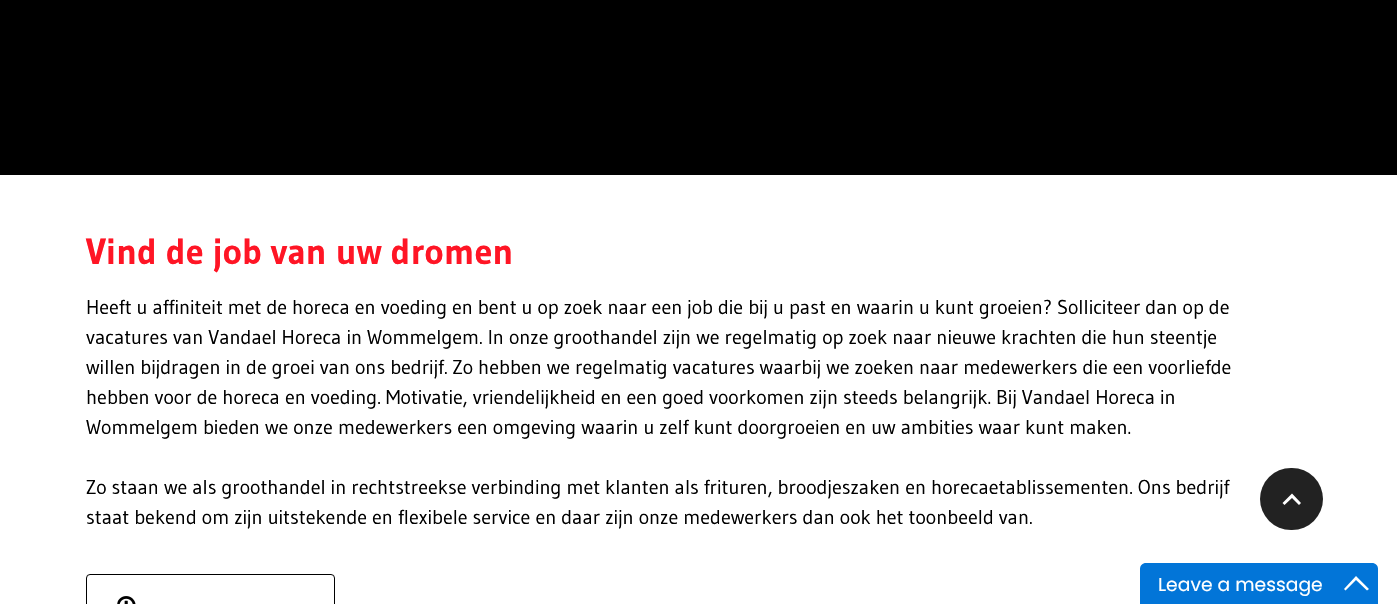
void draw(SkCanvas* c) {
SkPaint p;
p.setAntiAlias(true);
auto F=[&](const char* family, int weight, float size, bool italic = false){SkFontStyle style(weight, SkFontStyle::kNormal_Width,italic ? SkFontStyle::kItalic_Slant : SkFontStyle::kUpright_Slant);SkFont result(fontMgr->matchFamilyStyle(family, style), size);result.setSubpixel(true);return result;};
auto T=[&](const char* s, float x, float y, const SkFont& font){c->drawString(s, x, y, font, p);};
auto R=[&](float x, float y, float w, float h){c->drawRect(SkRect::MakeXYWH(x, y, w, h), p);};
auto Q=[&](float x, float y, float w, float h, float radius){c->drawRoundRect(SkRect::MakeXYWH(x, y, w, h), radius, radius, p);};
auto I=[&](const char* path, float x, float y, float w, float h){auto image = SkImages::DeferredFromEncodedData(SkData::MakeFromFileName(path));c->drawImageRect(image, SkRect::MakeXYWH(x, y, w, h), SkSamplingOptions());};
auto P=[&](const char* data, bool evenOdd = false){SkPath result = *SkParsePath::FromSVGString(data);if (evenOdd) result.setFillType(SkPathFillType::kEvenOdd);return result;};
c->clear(0xffffffff);
p.setColor(0xff000000);
R(0,0,1397,175);
auto f1 = F("Gudea",700,36.25);
p.setColor(0xffff1525);
T("Vind de job van uw dromen",86,264,f1);
auto f2 = F("Gudea",400,20);
p.setColor(0xff000000);
T("Heeft u affiniteit met de horeca en voeding en bent u op zoek naar een job die bij u past en waarin u kunt groeien? Solliciteer dan op de",86,314,f2);
T("vacatures van Vandael Horeca in Wommelgem. In onze groothandel zijn we regelmatig op zoek naar nieuwe krachten die hun steentje",86,344,f2);
T("willen bijdragen in de groei van ons bedrijf. Zo hebben we regelmatig vacatures waarbij we zoeken naar medewerkers die een voorliefde",86,374,f2);
T("hebben voor de horeca en voeding. Motivatie, vriendelijkheid en een goed voorkomen zijn steeds belangrijk. Bij Vandael Horeca in",86,404,f2);
T("Wommelgem bieden we onze medewerkers een omgeving waarin u zelf kunt doorgroeien en uw ambities waar kunt maken.",86,434,f2);
T("Zo staan we als groothandel in rechtstreekse verbinding met klanten als frituren, broodjeszaken en horecaetablissementen. Ons bedrijf",86,494,f2);
T("staat bekend om zijn uitstekende en flexibele service en daar zijn onze medewerkers dan ook het toonbeeld van.",86,524,f2);
p.setStroke(true);
p.setStrokeWidth(1);
c->drawRoundRect(SkRect::MakeXYWH(86.5,574.5,248,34),3.5,3.5,p);
I("1.png",117,596,19,8);
p.setStroke(false);
p.setColor(0xff222222);
Q(1260,468,63,62,31);
p.setColor(0xffffffff);
c->drawPath(P("M1292 493.5l-9.5 9.5l2 2l7.5-7l7 7l2-2z"),p);
p.setColor(0xff0275d8);
c->drawPath(P("M1146 563h226c3.5 0 6 2.5 6 6v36h-238v-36c0-3.5 2.5-6 6-6z"),p);
auto f3 = F("Poppins",400,18.75);
p.setColor(0xffffffff);
T("Leave a message",1158,591,f3);
c->drawPath(P("M1356 576l13 13l-2 1.5l-11-10.5l-10.5 10.5l-1.5-1.5z"),p);
}
